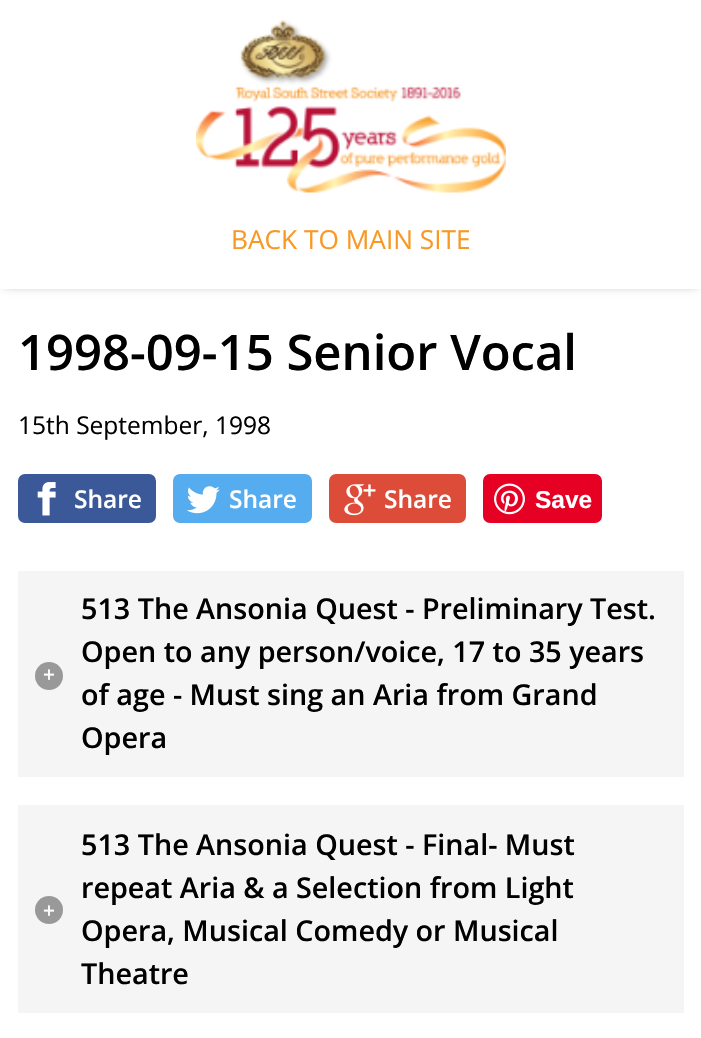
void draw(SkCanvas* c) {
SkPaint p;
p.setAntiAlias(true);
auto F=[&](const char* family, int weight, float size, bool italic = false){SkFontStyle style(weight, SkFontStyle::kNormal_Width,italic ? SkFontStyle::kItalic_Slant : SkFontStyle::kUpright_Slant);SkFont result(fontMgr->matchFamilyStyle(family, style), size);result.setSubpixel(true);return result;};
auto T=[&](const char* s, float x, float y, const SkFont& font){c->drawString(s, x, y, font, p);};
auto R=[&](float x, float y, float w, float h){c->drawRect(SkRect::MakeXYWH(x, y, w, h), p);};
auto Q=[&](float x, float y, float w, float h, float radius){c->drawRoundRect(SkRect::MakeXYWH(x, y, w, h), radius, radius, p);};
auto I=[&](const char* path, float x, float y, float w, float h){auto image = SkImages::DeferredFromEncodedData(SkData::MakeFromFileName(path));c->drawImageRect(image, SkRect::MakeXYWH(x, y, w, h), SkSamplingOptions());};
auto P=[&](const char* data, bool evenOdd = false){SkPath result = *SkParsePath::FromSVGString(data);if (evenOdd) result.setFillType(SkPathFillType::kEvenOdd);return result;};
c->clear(0xffffffff);
c->save();
c->clipPath(P("M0 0h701v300h-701zm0 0h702v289h-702z",true),true);
p.setColor(0xff777777);
p.setMaskFilter(SkMaskFilter::MakeBlur(kNormal_SkBlurStyle, 5));
c->drawRect(SkRect::MakeXYWH(5,5,692,279),p);
p.setMaskFilter(nullptr);
c->restore();
I("1.png",196,19,310,174);
auto f1 = F("Open Sans",400,26.25);
p.setColor(0xfff89925);
T("BACK TO MAIN SITE",231,249,f1);
auto f2 = F("Open Sans",600,49);
p.setColor(0xff000000);
T("1998-09-15 Senior Vocal",18,370,f2);
auto f3 = F("Open Sans",400,24.5);
T("15th September, 1998",18,434,f3);
p.setColor(0xff3b5998);
Q(18,474,138,49,7);
I("2.png",37,482,19,34);
auto f4 = F("Open Sans",600,24.5);
p.setColor(0xffffffff);
T("Share",74,508,f4);
p.setColor(0xff55acee);
Q(173,474,139,49,7);
I("3.png",186,486,34,28);
p.setColor(0xffffffff);
T("Share",229,508,f4);
p.setColor(0xffdd4b39);
Q(329,474,137,49,7);
I("4.png",344,484,32,32);
p.setColor(0xffffffff);
T("Share",384,508,f4);
p.setColor(0xffe60023);
Q(483,474,119,49,7);
I("5.png",494,483,31,32);
auto f5 = F("Liberation Sans",700,24.5);
p.setColor(0xffffffff);
T("Save",535,508,f5);
p.setColor(0xfff5f5f5);
R(18,571,666,206);
auto f6 = F("Open Sans",600,28.7);
p.setColor(0xff000000);
T("513 The Ansonia Quest - Preliminary Test.",81,619,f6);
T("Open to any person/voice, 17 to 35 years",81,662,f6);
p.setColor(0xff999999);
c->drawCircle(49,676,14,p);
auto f7 = F("Open Sans",600,21);
p.setColor(0xffffffff);
T("+",43,682,f7);
p.setColor(0xff000000);
T("of age - Must sing an Aria from Grand",81,705,f6);
T("Opera",81,748,f6);
p.setColor(0xfff5f5f5);
R(18,805,666,208);
p.setColor(0xff000000);
T("513 The Ansonia Quest - Final- Must",81,855,f6);
T("repeat Aria & a Selection from Light",81,898,f6);
p.setColor(0xff999999);
c->drawCircle(49,910,14,p);
p.setColor(0xffffffff);
T("+",43,918,f7);
p.setColor(0xff000000);
T("Opera, Musical Comedy or Musical",81,941,f6);
T("Theatre",81,984,f6);
}
